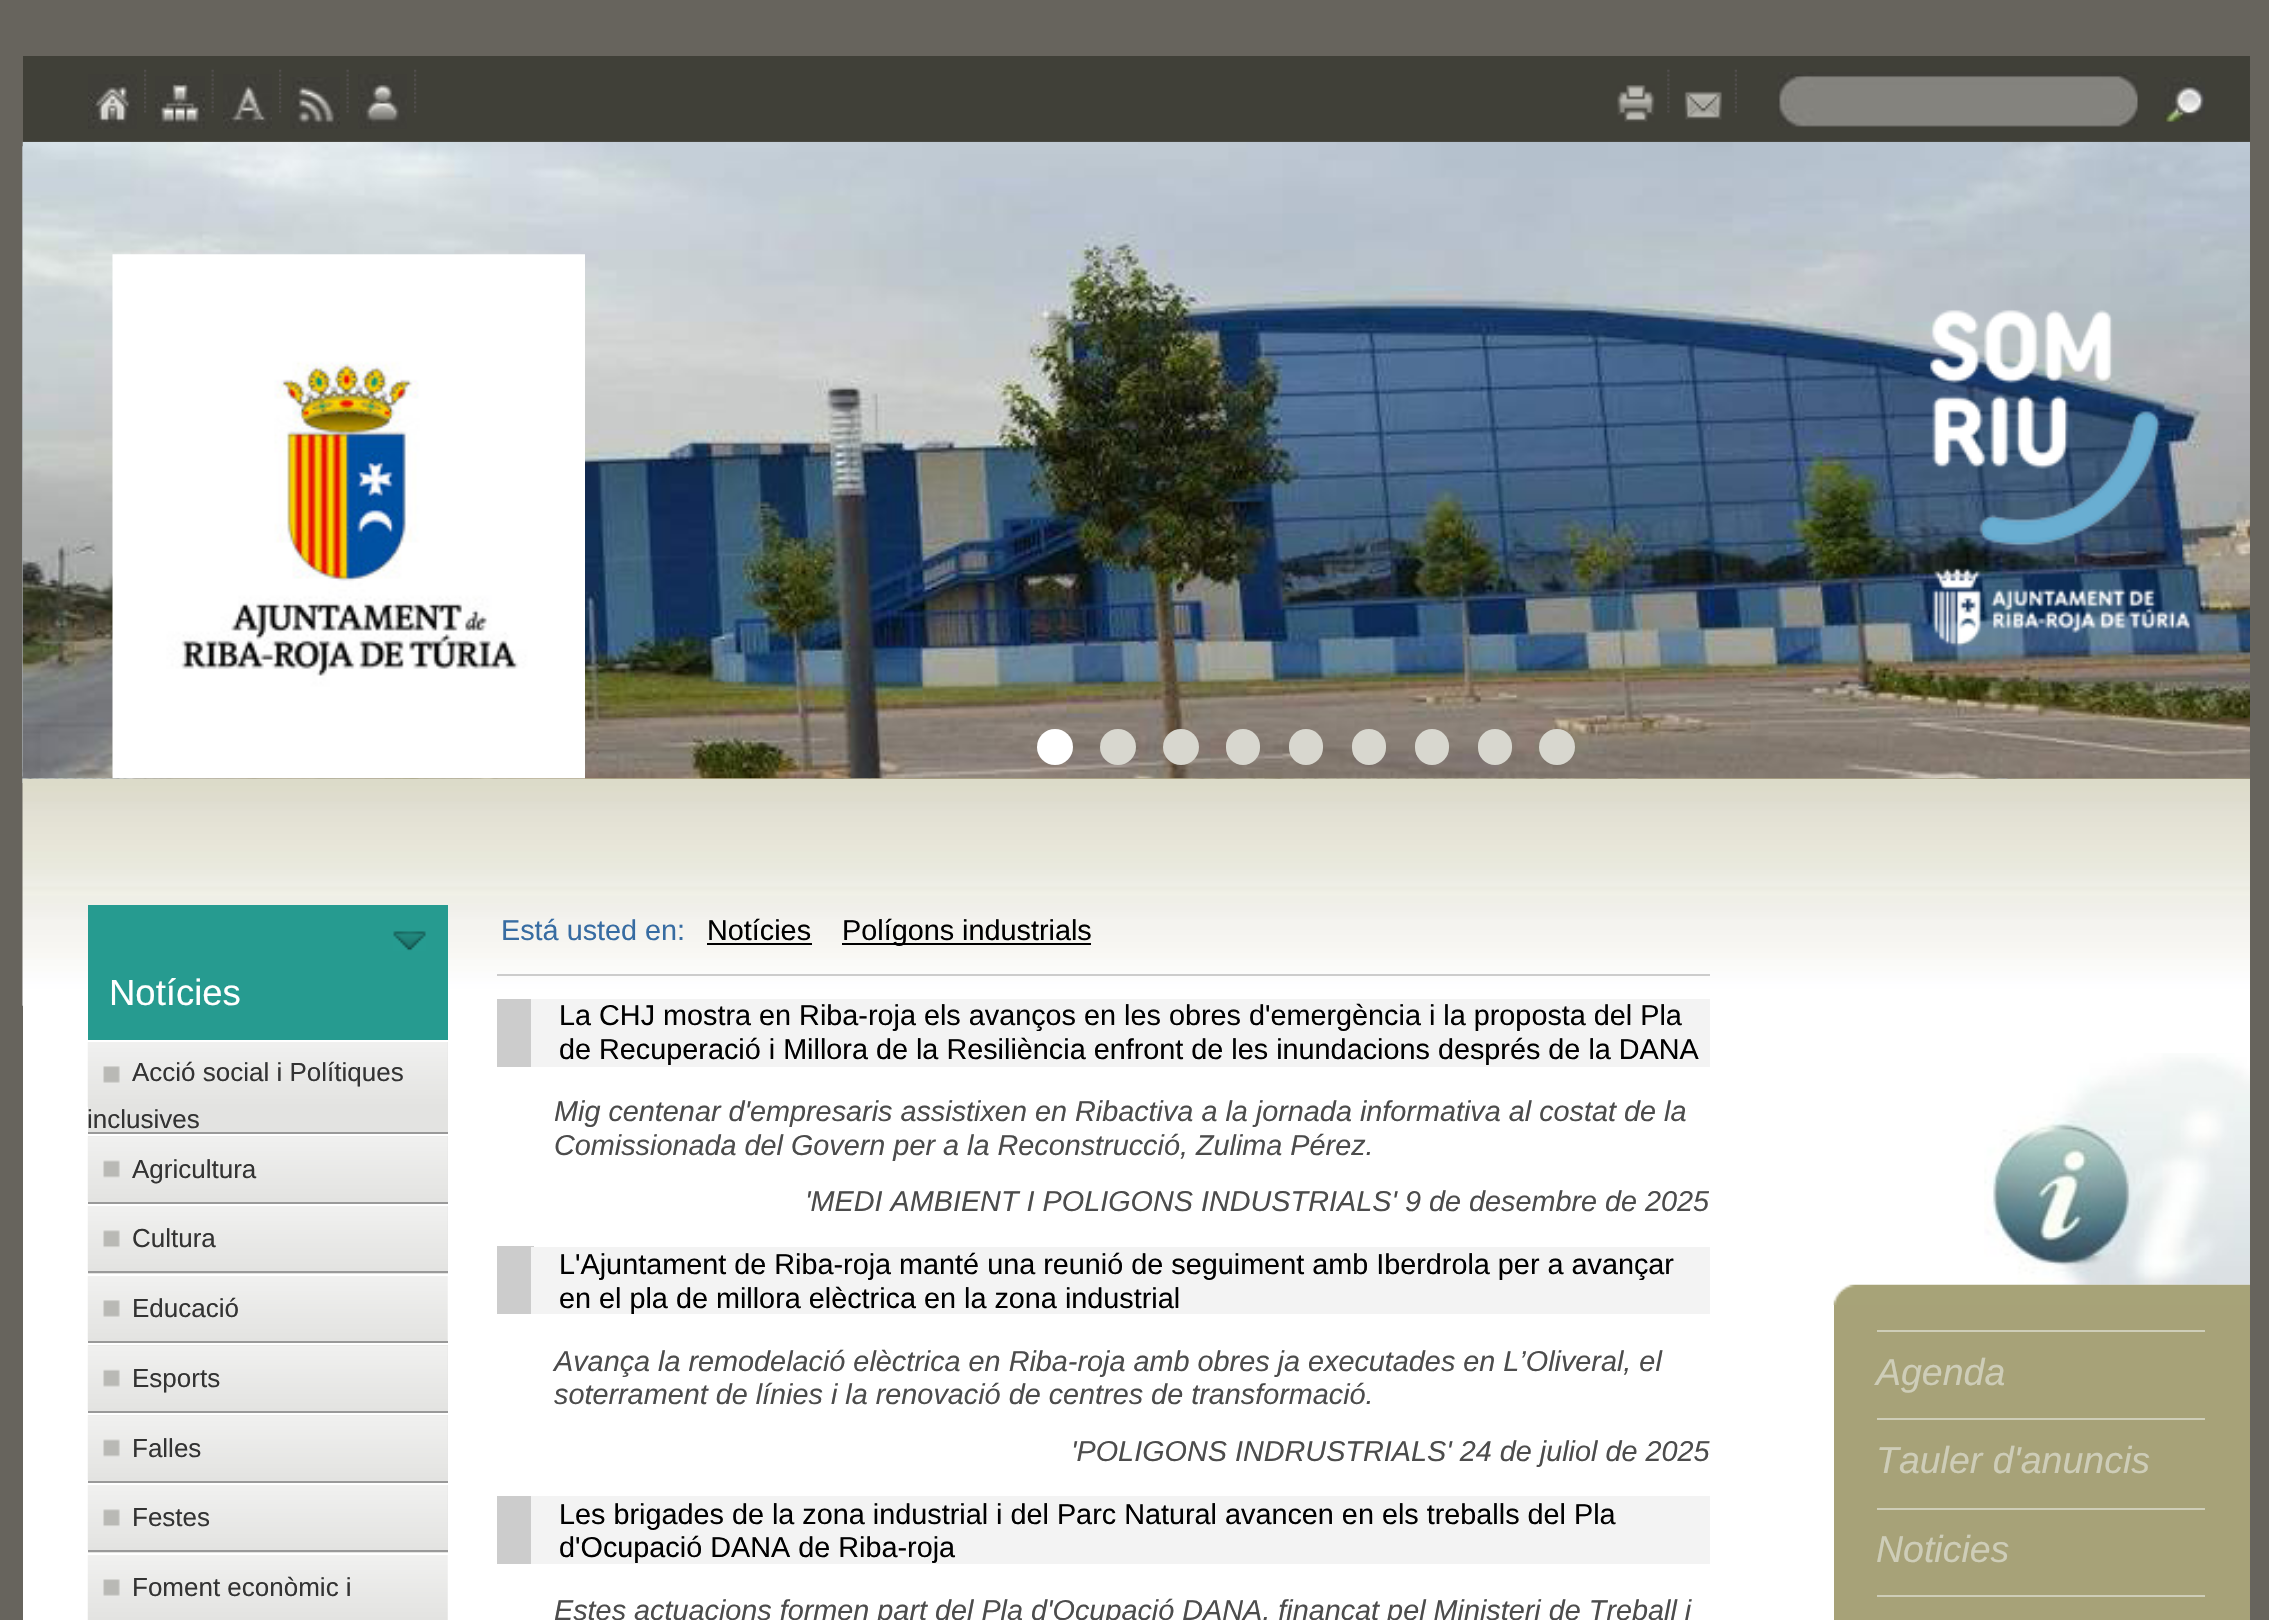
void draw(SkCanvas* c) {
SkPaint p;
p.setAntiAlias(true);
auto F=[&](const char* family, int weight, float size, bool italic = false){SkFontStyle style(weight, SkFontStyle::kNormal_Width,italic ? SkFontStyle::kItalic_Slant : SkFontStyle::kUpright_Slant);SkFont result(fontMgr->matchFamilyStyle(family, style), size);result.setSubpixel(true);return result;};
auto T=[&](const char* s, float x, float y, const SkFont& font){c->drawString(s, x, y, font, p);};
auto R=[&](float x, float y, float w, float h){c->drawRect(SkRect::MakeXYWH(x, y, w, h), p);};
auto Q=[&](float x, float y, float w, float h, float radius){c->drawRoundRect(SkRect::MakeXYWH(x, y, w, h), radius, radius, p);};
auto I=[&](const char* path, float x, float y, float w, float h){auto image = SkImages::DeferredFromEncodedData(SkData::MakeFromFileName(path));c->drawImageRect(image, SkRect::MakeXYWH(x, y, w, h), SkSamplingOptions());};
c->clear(0xff67645d);
I("1.png",22,146,2228,637);
p.setColor(0xff404038);
R(23,56,2227,86);
I("2.png",144,69,3,44);
I("3.png",88,74,49,55);
I("4.png",211,69,3,44);
I("5.png",155,76,50,53);
I("2.png",279,69,3,44);
I("6.png",223,74,49,55);
I("4.png",346,69,3,44);
I("7.png",290,77,50,52);
I("2.png",414,69,3,44);
I("8.png",358,74,49,55);
I("9.png",1667,69,3,44);
I("10.png",1617,85,38,37);
I("11.png",1734,69,3,44);
I("12.png",1684,91,38,29);
I("13.png",1777,72,361,55);
I("14.png",2161,77,44,45);
p.setColor(0xffffffff);
R(23,1005,2227,615);
I("17.png",22,778,2228,228);
I("15.png",22,141,2228,638);
c->drawCircle(1055,747,18,p);
p.setColor(0xffd8d7cf);
c->drawCircle(1118,747,18,p);
c->drawCircle(1181,747,18,p);
Q(1226,729,34,36,17);
Q(1289,729,34,36,17);
Q(1352,729,34,36,17);
Q(1415,729,34,36,17);
Q(1478,729,34,36,17);
c->drawCircle(1557,747,18,p);
I("16.png",112,254,473,525);
p.setColor(0xff269b90);
R(88,905,360,135);
I("18.png",393,931,33,20);
auto f1 = F("Liberation Sans",400,36.5);
p.setColor(0xffffffff);
T("Notícies",109,1005,f1);
p.setColor(0xffe3e3e1);
R(88,1042,360,90);
I("19.png",87,1041,361,66);
p.setColor(0xffffffff);
R(88,1041,360,1);
p.setColor(0xff999999);
R(88,1132,360,2);
auto f2 = F("Liberation Sans",400,26);
p.setColor(0xff333333);
T("Acció social i Polítiques",132,1081,f2);
T("inclusives",87,1128,f2);
p.setColor(0xffe3e3e1);
R(88,1136,360,66);
I("20.png",87,1136,361,65);
p.setColor(0xff999999);
R(88,1202,360,2);
p.setColor(0xff333333);
T("Agricultura",132,1178,f2);
p.setColor(0xffe3e3e1);
R(88,1206,360,68);
I("21.png",87,1206,361,65);
p.setColor(0xff999999);
R(88,1271,360,2);
p.setColor(0xff333333);
T("Cultura",132,1247,f2);
I("19.png",87,1275,361,66);
p.setColor(0xffffffff);
R(88,1275,360,1);
p.setColor(0xff999999);
R(88,1341,360,2);
p.setColor(0xff333333);
T("Educació",132,1317,f2);
p.setColor(0xffe3e3e1);
R(88,1345,360,66);
I("22.png",87,1345,361,66);
p.setColor(0xff999999);
R(88,1411,360,2);
p.setColor(0xff333333);
T("Esports",132,1387,f2);
p.setColor(0xffe3e3e1);
R(88,1415,360,66);
I("20.png",87,1415,361,65);
p.setColor(0xff999999);
R(88,1481,360,2);
p.setColor(0xff333333);
T("Falles",132,1457,f2);
p.setColor(0xffe3e3e1);
R(88,1485,360,68);
I("21.png",87,1485,361,65);
p.setColor(0xff999999);
R(88,1550,360,2);
p.setColor(0xff333333);
T("Festes",132,1526,f2);
I("23.png",87,1554,361,66);
p.setColor(0xffffffff);
R(88,1554,360,1);
p.setColor(0xff333333);
T("Foment econòmic i",132,1596,f2);
auto f3 = F("Liberation Sans",400,28.8);
p.setColor(0xff376ca2);
T("Está usted en:",501,940,f3);
p.setColor(0xff000000);
T("Notícies",707,940,f3);
R(707,943,105,2);
R(842,943,249,2);
T("Polígons industrials",842,940,f3);
p.setColor(0xffcccccc);
R(497,974,1213,2);
R(497,999,34,68);
p.setColor(0xfff3f3f3);
R(531,999,1179,68);
p.setColor(0xff000000);
T("La CHJ mostra en Riba-roja els avanços en les obres d'emergència i la proposta del Pla",559,1025,f3);
T("de Recuperació i Millora de la Resiliència enfront de les inundacions després de la DANA",559,1059,f3);
auto f4 = F("Liberation Sans",400,28.8,true);
p.setColor(0xff4c4c4c);
T("Mig centenar d'empresaris assistixen en Ribactiva a la jornada informativa al costat de la",554,1121,f4);
T("Comissionada del Govern per a la Reconstrucció, Zulima Pérez.",554,1155,f4);
T("'MEDI AMBIENT I POLIGONS INDUSTRIALS' 9 de desembre de 2025",805,1211,f4);
p.setColor(0xffcccccc);
R(497,1246,37,68);
p.setColor(0xfff3f3f3);
R(531,1247,1179,67);
p.setColor(0xff000000);
T("L'Ajuntament de Riba-roja manté una reunió de seguiment amb Iberdrola per a avançar",559,1274,f3);
T("en el pla de millora elèctrica en la zona industrial",559,1308,f3);
p.setColor(0xff4c4c4c);
T("Avança la remodelació elèctrica en Riba-roja amb obres ja executades en L’Oliveral, el",554,1371,f4);
T("soterrament de línies i la renovació de centres de transformació.",554,1404,f4);
T("'POLIGONS INDRUSTRIALS' 24 de juliol de 2025",1071,1461,f4);
p.setColor(0xffcccccc);
R(497,1496,34,68);
p.setColor(0xfff3f3f3);
R(531,1496,1179,68);
p.setColor(0xff000000);
T("Les brigades de la zona industrial i del Parc Natural avancen en els treballs del Pla",559,1524,f3);
T("d'Ocupació DANA de Riba-roja",559,1557,f3);
p.setColor(0xff4c4c4c);
T("Estes actuacions formen part del Pla d'Ocupació DANA, finançat pel Ministeri de Treball i",554,1620,f4);
I("24.png",1984,1053,266,232);
p.setColor(0xffa7a278);
R(1834,1305,416,315);
I("25.png",1833,1284,417,21);
p.setColor(0xffcecdb8);
R(1877,1330,328,2);
auto f5 = F("Liberation Sans",400,37.5,true);
T("Agenda",1876,1385,f5);
R(1877,1418,328,2);
T("Tauler d'anuncis",1876,1473,f5);
R(1877,1508,328,2);
T("Noticies",1876,1562,f5);
R(1877,1595,328,2);
}
